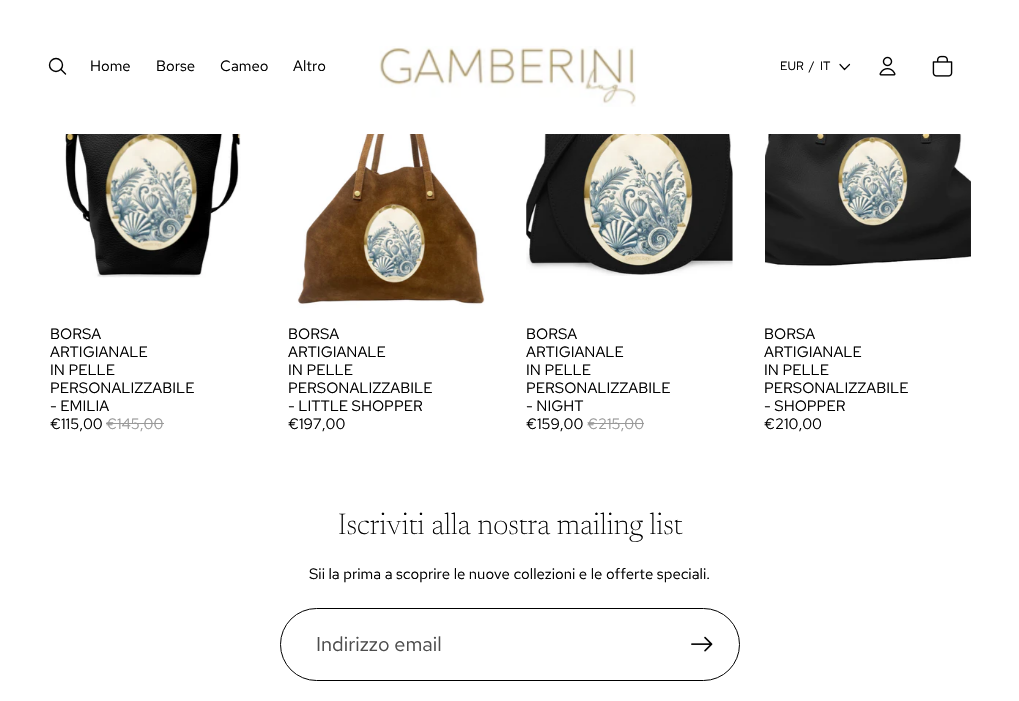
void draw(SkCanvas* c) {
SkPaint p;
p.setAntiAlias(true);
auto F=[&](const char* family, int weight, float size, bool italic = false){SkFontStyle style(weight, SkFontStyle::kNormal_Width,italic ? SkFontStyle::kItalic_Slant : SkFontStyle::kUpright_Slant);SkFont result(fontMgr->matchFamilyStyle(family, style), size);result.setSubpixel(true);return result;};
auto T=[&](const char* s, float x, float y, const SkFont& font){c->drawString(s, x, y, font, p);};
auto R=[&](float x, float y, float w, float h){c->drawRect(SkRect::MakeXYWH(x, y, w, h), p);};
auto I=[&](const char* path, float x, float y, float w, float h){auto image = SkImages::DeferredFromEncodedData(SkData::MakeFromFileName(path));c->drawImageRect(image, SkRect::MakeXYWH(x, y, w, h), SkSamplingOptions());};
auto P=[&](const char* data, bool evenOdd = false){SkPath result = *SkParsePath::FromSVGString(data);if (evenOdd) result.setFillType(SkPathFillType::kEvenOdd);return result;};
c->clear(0xffffffff);
p.setStroke(true);
p.setStrokeWidth(1.4);
p.setColor(0xff000000);
c->drawCircle(56,65,6.5,p);
p.setStrokeCap(SkPaint::kRound_Cap);
p.setStrokeJoin(SkPaint::kRound_Join);
c->drawPath(P("M61 69.5l4.5 4.5"),p);
auto f1 = F("Red Hat Text",400,15);
p.setStroke(false);
T("Home",90,71,f1);
T("Borse",156,71,f1);
T("Cameo",220,71,f1);
T("Altro",293,71,f1);
I("1.png",379,46,257,61);
auto f2 = F("Red Hat Text",400,12);
T("EUR",780,70,f2);
T("/",809,70,f2);
T("IT",820,70,f2);
p.setStroke(true);
p.setStrokeWidth(1.2);
c->drawPath(P("M849.5 64.5l-5 5l-4.5-5"),p);
I("2.png",879,56,17,20);
I("3.png",932,55,21,22);
I("4.png",64,134,177,144);
p.setStroke(false);
T("BORSA",50,339,f1);
T("ARTIGIANALE",50,357,f1);
T("IN PELLE",50,375,f1);
T("PERSONALIZZABILE",50,393,f1);
T("- EMILIA",50,411,f1);
T("€115,00",50,429,f1);
p.setColor(0xff999999);
T("€145,00",106,429,f1);
R(106,423,58,1);
I("5.png",297,134,188,174);
p.setColor(0xff000000);
T("BORSA",288,339,f1);
T("ARTIGIANALE",288,357,f1);
T("IN PELLE",288,375,f1);
T("PERSONALIZZABILE",288,393,f1);
T("- LITTLE SHOPPER",288,411,f1);
T("€197,00",288,429,f1);
I("6.png",526,134,207,142);
T("BORSA",526,339,f1);
T("ARTIGIANALE",526,357,f1);
T("IN PELLE",526,375,f1);
T("PERSONALIZZABILE",526,393,f1);
T("- NIGHT",526,411,f1);
T("€159,00",526,429,f1);
p.setColor(0xff999999);
T("€215,00",587,429,f1);
R(588,423,56,1);
I("7.png",765,134,206,133);
p.setColor(0xff000000);
T("BORSA",764,339,f1);
T("ARTIGIANALE",764,357,f1);
T("IN PELLE",764,375,f1);
T("PERSONALIZZABILE",764,393,f1);
T("- SHOPPER",764,411,f1);
T("€210,00",764,429,f1);
auto f3 = F("Newsreader",200,30);
T("Iscriviti alla nostra mailing list",338,534,f3);
T("Sii la prima a scoprire le nuove collezioni e le offerte speciali.",309,579,f1);
p.setStroke(true);
p.setStrokeWidth(1);
p.setStrokeCap(SkPaint::kButt_Cap);
p.setStrokeJoin(SkPaint::kMiter_Join);
c->drawRoundRect(SkRect::MakeXYWH(280.5,608.5,459,72),36,36,p);
auto f4 = F("Red Hat Text",400,20);
p.setStroke(false);
p.setColor(0xff4d4d4d);
T("Indirizzo email",316,651,f4);
I("8.png",691,636,22,16);
}
